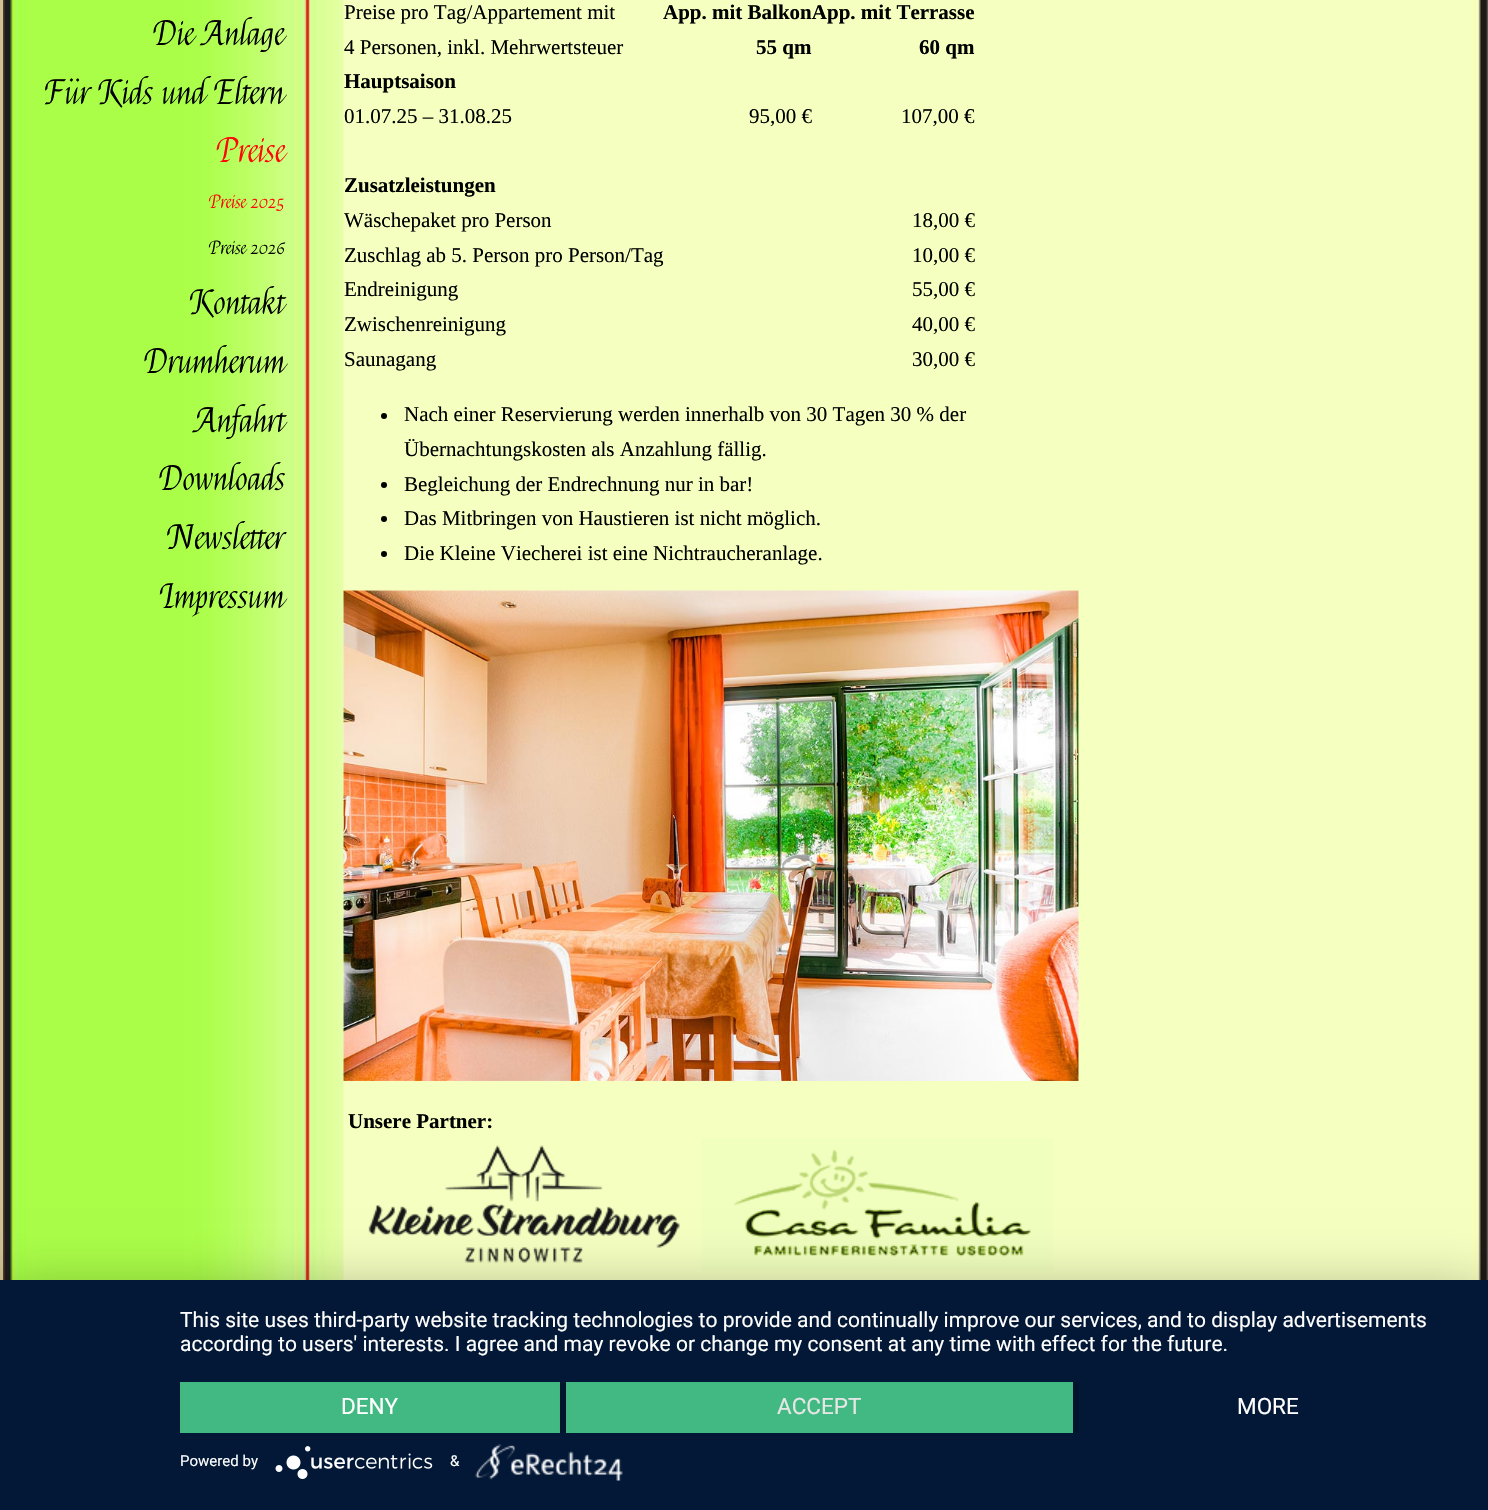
void draw(SkCanvas* c) {
SkPaint p;
p.setAntiAlias(true);
auto F=[&](const char* family, int weight, float size, bool italic = false){SkFontStyle style(weight, SkFontStyle::kNormal_Width,italic ? SkFontStyle::kItalic_Slant : SkFontStyle::kUpright_Slant);SkFont result(fontMgr->matchFamilyStyle(family, style), size);result.setSubpixel(true);return result;};
auto T=[&](const char* s, float x, float y, const SkFont& font){c->drawString(s, x, y, font, p);};
auto R=[&](float x, float y, float w, float h){c->drawRect(SkRect::MakeXYWH(x, y, w, h), p);};
auto I=[&](const char* path, float x, float y, float w, float h){auto image = SkImages::DeferredFromEncodedData(SkData::MakeFromFileName(path));c->drawImageRect(image, SkRect::MakeXYWH(x, y, w, h), SkSamplingOptions());};
c->clear(0xfff5ffc0);
p.setStroke(true);
p.setStrokeWidth(3);
p.setColor(0xffd0c08d);
c->drawRect(SkRect::MakeXYWH(1.5,-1.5,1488,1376),p);
I("1.png",3,0,341,1280);
auto f1 = F("Felipa",400,33);
p.setStroke(false);
p.setColor(0xff000000);
T("Die Anlage",153,45,f1);
T("Für Kids und Eltern",45,104,f1);
p.setColor(0xfffe0807);
T("Preise",217,162,f1);
auto f2 = F("Felipa",400,18);
T("Preise 2025",209,208,f2);
p.setColor(0xff000000);
T("Preise 2026",209,254,f2);
T("Kontakt",190,314,f1);
T("Drumherum",144,373,f1);
T("Anfahrt",195,432,f1);
T("Downloads",159,490,f1);
T("Newsletter",168,549,f1);
T("Impressum",160,608,f1);
auto f3 = F("Liberation Serif",400,21);
T("Preise pro Tag/Appartement mit",344,19,f3);
T("4 Personen, inkl. Mehrwertsteuer",344,54,f3);
auto f4 = F("Liberation Serif",700,21);
T("App. mit BalkonApp. mit Terrasse",663,19,f4);
T("55 qm",756,54,f4);
T("60 qm",919,54,f4);
T("Hauptsaison",344,88,f4);
T("01.07.25 – 31.08.25",344,123,f3);
T("95,00 €",749,123,f3);
T("107,00 €",901,123,f3);
T("Zusatzleistungen",344,192,f4);
T("Wäschepaket pro Person",344,227,f3);
T("18,00 €",912,227,f3);
T("Zuschlag ab 5. Person pro Person/Tag",344,262,f3);
T("10,00 €",912,262,f3);
T("Endreinigung",344,296,f3);
T("55,00 €",912,296,f3);
T("Zwischenreinigung",344,331,f3);
T("40,00 €",912,331,f3);
T("Saunagang",344,366,f3);
T("30,00 €",912,366,f3);
c->drawCircle(384,416,3,p);
T("Nach einer Reservierung werden innerhalb von 30 Tagen 30 % der",404,421,f3);
T("Übernachtungskosten als Anzahlung fällig.",404,456,f3);
c->drawCircle(384,485,3,p);
T("Begleichung der Endrechnung nur in bar!",404,491,f3);
c->drawCircle(384,519,3,p);
T("Das Mitbringen von Haustieren ist nicht möglich.",404,525,f3);
c->drawCircle(384,554,3,p);
T("Die Kleine Viecherei ist eine Nichtraucheranlage.",404,560,f3);
I("2.png",343,590,736,491);
T("Unsere Partner:",348,1128,f4);
I("3.png",368,1145,312,118);
I("4.png",701,1138,352,133);
I("5.png",1472,0,16,1280);
p.setColor(0x4d000000);
p.setMaskFilter(SkMaskFilter::MakeBlur(kNormal_SkBlurStyle, 27));
c->drawRect(SkRect::MakeXYWH(0,1289,1488,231),p);
p.setMaskFilter(nullptr);
p.setColor(0xff021836);
R(0,1280,1488,230);
auto f5 = F("Roboto",400,21);
p.setColor(0xffffffff);
T("This site uses third-party website tracking technologies to provide and continually improve our services, and to display advertisements",180,1327,f5);
T("according to users' interests. I agree and may revoke or change my consent at any time with effect for the future.",180,1351,f5);
c->save();
c->clipRect(SkRect::MakeXYWH(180,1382,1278,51));
p.setColor(0x66000000);
p.setMaskFilter(SkMaskFilter::MakeBlur(kNormal_SkBlurStyle, 3));
c->drawRect(SkRect::MakeXYWH(180,1383,380,51),p);
p.setMaskFilter(nullptr);
c->restore();
p.setColor(0xff42b983);
R(180,1382,380,51);
auto f6 = F("Roboto",400,22.5);
p.setColor(0xffffffff);
T("DENY",341,1414,f6);
c->save();
c->clipRect(SkRect::MakeXYWH(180,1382,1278,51));
p.setColor(0x66000000);
p.setMaskFilter(SkMaskFilter::MakeBlur(kNormal_SkBlurStyle, 3));
c->drawRect(SkRect::MakeXYWH(566,1383,507,51),p);
p.setMaskFilter(nullptr);
c->restore();
p.setColor(0xff42b983);
R(566,1382,507,51);
p.setColor(0xffe6e6e6);
T("ACCEPT",777,1414,f6);
c->save();
c->clipRect(SkRect::MakeXYWH(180,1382,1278,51));
p.setColor(0x66000000);
p.setMaskFilter(SkMaskFilter::MakeBlur(kNormal_SkBlurStyle, 3));
c->drawRect(SkRect::MakeXYWH(1079,1383,379,51),p);
p.setMaskFilter(nullptr);
c->restore();
p.setColor(0xff021836);
R(1079,1382,379,51);
p.setColor(0xffffffff);
T("MORE",1237,1414,f6);
auto f7 = F("Roboto",400,15);
T("Powered by",180,1466,f7);
I("6.png",275,1446,158,33);
T("&",450,1466,f7);
I("7.png",475,1444,148,37);
}
